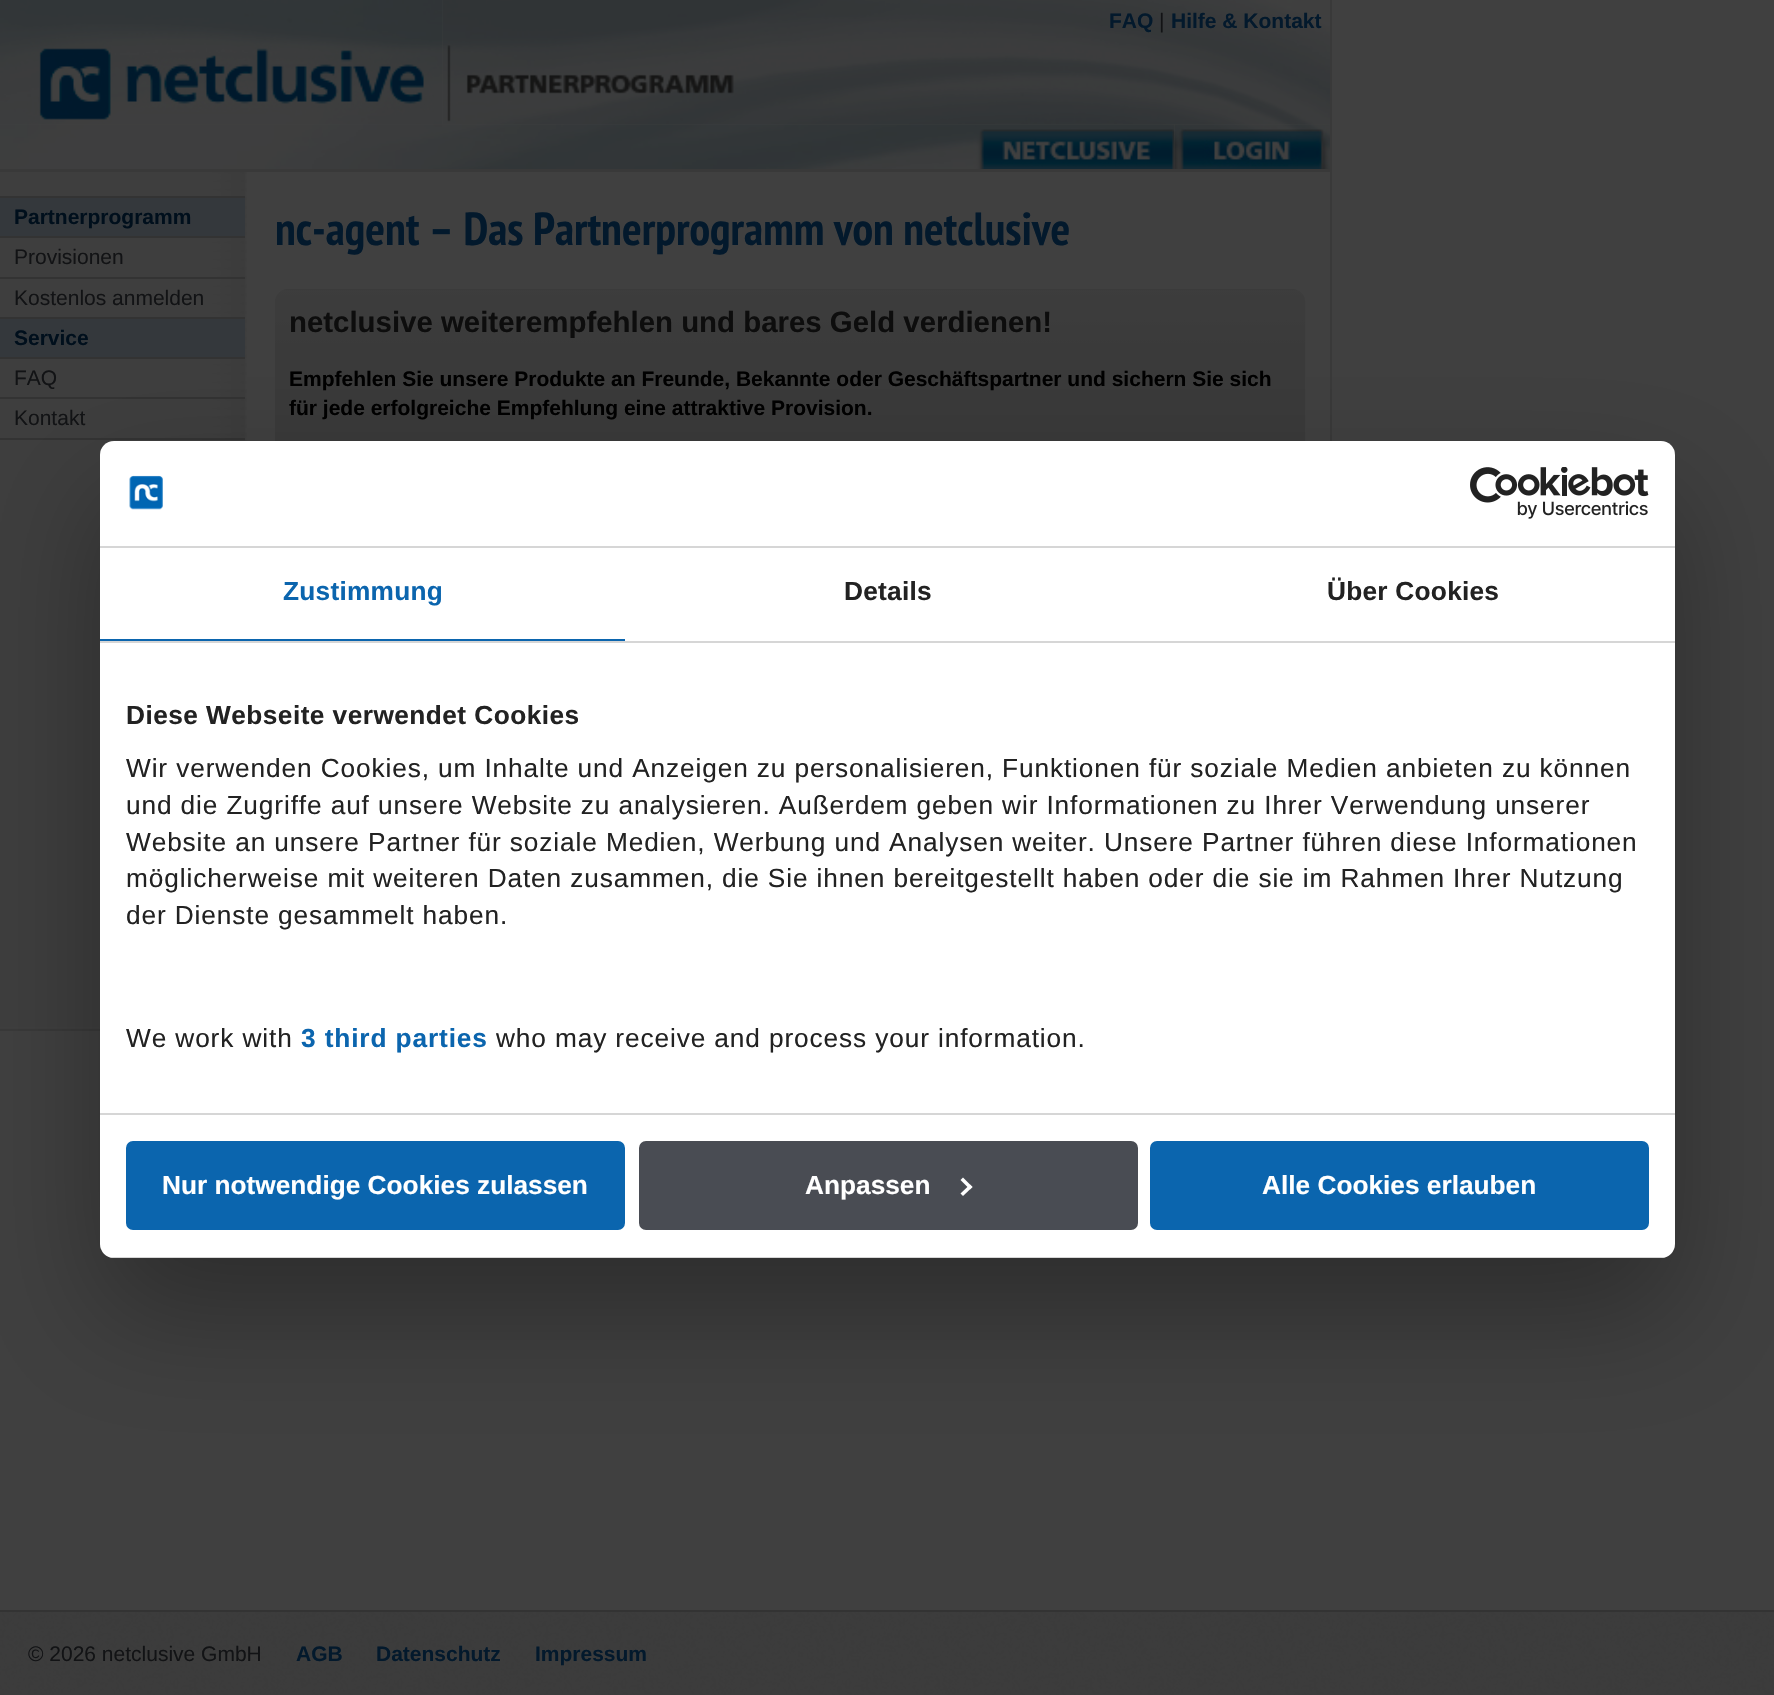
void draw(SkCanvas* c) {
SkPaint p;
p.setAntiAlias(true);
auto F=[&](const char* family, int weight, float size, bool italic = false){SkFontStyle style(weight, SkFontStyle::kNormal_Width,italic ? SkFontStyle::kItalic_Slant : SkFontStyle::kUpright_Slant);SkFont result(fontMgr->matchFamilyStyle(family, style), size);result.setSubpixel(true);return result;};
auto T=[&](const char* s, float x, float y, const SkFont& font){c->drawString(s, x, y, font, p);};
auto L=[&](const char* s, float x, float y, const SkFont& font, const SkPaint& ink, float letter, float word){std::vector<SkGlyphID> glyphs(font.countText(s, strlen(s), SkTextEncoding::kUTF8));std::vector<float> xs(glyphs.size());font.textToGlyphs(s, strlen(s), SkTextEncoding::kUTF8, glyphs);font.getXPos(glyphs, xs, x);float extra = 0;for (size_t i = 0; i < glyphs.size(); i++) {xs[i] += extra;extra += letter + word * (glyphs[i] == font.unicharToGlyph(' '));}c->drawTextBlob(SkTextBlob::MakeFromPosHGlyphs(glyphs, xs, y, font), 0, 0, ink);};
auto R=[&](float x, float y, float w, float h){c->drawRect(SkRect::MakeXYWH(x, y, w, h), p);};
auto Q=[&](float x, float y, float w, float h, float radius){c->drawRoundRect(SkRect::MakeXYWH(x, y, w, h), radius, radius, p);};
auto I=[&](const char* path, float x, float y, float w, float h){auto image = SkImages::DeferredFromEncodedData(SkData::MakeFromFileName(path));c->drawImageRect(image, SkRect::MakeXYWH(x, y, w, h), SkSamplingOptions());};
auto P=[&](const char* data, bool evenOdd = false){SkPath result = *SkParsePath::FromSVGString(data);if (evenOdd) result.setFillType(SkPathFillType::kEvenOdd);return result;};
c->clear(0xff404040);
I("2.png",442,0,888,124);
I("1.png",0,0,443,125);
auto f1 = F("Liberation Sans",700,21);
p.setColor(0xff03192c);
T("FAQ",1109,28,f1);
auto f2 = F("Liberation Sans",400,21);
p.setColor(0xff121315);
T("|",1159,28,f2);
p.setColor(0xff03192c);
T("Hilfe & Kontakt",1171,28,f1);
I("3.png",0,124,973,45);
I("4.png",973,124,202,45);
I("5.png",1174,124,156,45);
p.setColor(0xff393939);
R(0,169,1330,3);
I("6.png",0,172,247,856);
p.setColor(0xff34383c);
R(0,198,245,38);
p.setColor(0xff333333);
R(0,196,245,2);
R(0,236,245,2);
p.setColor(0xff000f1c);
T("Partnerprogramm",14,224,f1);
p.setColor(0xff333333);
R(0,277,245,2);
p.setColor(0xff121315);
T("Provisionen",14,264,f2);
p.setColor(0xff333333);
R(0,317,245,2);
p.setColor(0xff121315);
T("Kostenlos anmelden",14,305,f2);
p.setColor(0xff34383c);
R(0,319,245,38);
p.setColor(0xff333333);
R(0,357,245,2);
p.setColor(0xff000f1c);
T("Service",14,345,f1);
p.setColor(0xff333333);
R(0,397,245,2);
p.setColor(0xff121315);
T("FAQ",14,385,f2);
p.setColor(0xff333333);
R(0,438,245,2);
p.setColor(0xff121315);
T("Kontakt",14,425,f2);
p.setColor(0xff393939);
R(1330,0,2,441);
auto f3 = F("PT Sans Narrow",700,46.25);
p.setColor(0xff03192c);
T("nc-agent – Das Partnerprogramm von netclusive",275,245,f3);
I("7.png",275,289,1031,152);
auto f4 = F("Liberation Sans",700,29.4);
p.setColor(0xff0d0d0d);
T("netclusive weiterempfehlen und bares Geld verdienen!",289,332,f4);
p.setColor(0xff000000);
T("Empfehlen Sie unsere Produkte an Freunde, Bekannte oder Geschäftspartner und sichern Sie sich",289,386,f1);
T("für jede erfolgreiche Empfehlung eine attraktive Provision.",289,415,f1);
I("8.png",0,1027,100,2);
p.setColor(0xff393939);
R(0,1029,100,2);
p.setColor(0x4d000000);
p.setMaskFilter(SkMaskFilter::MakeBlur(kNormal_SkBlurStyle, 59.5));
c->drawRoundRect(SkRect::MakeXYWH(100,497,1575,817),14,14,p);
p.setMaskFilter(nullptr);
p.setColor(0xffffffff);
Q(100,441,1575,817,14);
p.setColor(0xffd6d6d6);
R(100,546,1575,2);
I("9.png",129,475,34,35);
I("10.png",1470,467,179,52);
R(100,641,1575,2);
p.setColor(0xff0b65ae);
R(100,639,525,2);
auto f5 = F("Liberation Sans",700,26.25);
L("Zustimmung",283,600,f5,p,.25,0);
p.setColor(0xff222222);
L("Details",844,600,f5,p,.25,0);
L("Über Cookies",1327,600,f5,p,.25,0);
p.setColor(0xffd6d6d6);
R(100,1113,1575,2);
p.setColor(0xff222222);
L("Diese Webseite verwendet Cookies",126,724,f5,p,.45,0);
auto f6 = F("Liberation Sans",400,26.25);
L("Wir verwenden Cookies, um Inhalte und Anzeigen zu personalisieren, Funktionen für soziale Medien anbieten zu können",126,777,f6,p,.88,0);
L("und die Zugriffe auf unsere Website zu analysieren. Außerdem geben wir Informationen zu Ihrer Verwendung unserer",126,814,f6,p,.88,0);
L("Website an unsere Partner für soziale Medien, Werbung und Analysen weiter. Unsere Partner führen diese Informationen",126,851,f6,p,.88,0);
L("möglicherweise mit weiteren Daten zusammen, die Sie ihnen bereitgestellt haben oder die sie im Rahmen Ihrer Nutzung",126,887,f6,p,.88,0);
L("der Dienste gesammelt haben.",126,924,f6,p,.88,0);
L("We work with",126,1047,f6,p,.88,0);
p.setColor(0xff0b65ae);
L("3 third parties",301,1047,f5,p,.88,0);
p.setColor(0xff222222);
L("who may receive and process your information.",496,1047,f6,p,.88,0);
c->save();
c->clipPath(P("M114 441h1547c7.5 0 14 6.5 14 14v789c0 7.5-6.5 14-14 14h-1547c-7.5 0-14-6.5-14-14v-789c0-7.5 6.5-14 14-14z"),true);
p.setColor(0xffd6d6d6);
R(109,1257,1557,1);
c->restore();
p.setColor(0xff0b65ae);
c->drawRoundRect(SkRect::MakeXYWH(128,1143,495,85),5,5,p);
p.setStroke(true);
p.setStrokeWidth(4);
c->drawRoundRect(SkRect::MakeXYWH(128,1143,495,85),5,5,p);
p.setStroke(false);
p.setColor(0xffffffff);
T("Nur notwendige Cookies zulassen",162,1194,f5);
p.setColor(0xff494c53);
c->drawRoundRect(SkRect::MakeXYWH(641,1143,495,85),5,5,p);
p.setStroke(true);
c->drawRoundRect(SkRect::MakeXYWH(641,1143,495,85),5,5,p);
p.setStroke(false);
p.setColor(0xffffffff);
T("Anpassen",805,1194,f5);
c->drawPath(P("M963 1177.5l9.5 9.5l-2.5 2.5l-9.5-9.5z"),p);
c->drawPath(P("M970 1184.5l2.5 2.5l-9.5 9l-2.5-2.5z"),p);
p.setColor(0xff0b65ae);
c->drawRoundRect(SkRect::MakeXYWH(1152,1143,495,85),5,5,p);
p.setStroke(true);
c->drawRoundRect(SkRect::MakeXYWH(1152,1143,495,85),5,5,p);
p.setStroke(false);
p.setColor(0xffffffff);
T("Alle Cookies erlauben",1262,1194,f5);
p.setColor(0xff3c3c3c);
R(0,1612,1774,83);
I("11.png",0,1612,1774,83);
p.setColor(0xff333333);
R(0,1610,1774,2);
p.setColor(0xff121315);
T("© 2026 netclusive GmbH",28,1661,f2);
p.setColor(0xff03192c);
T("AGB",296,1661,f1);
T("Datenschutz",376,1661,f1);
T("Impressum",535,1661,f1);
}
